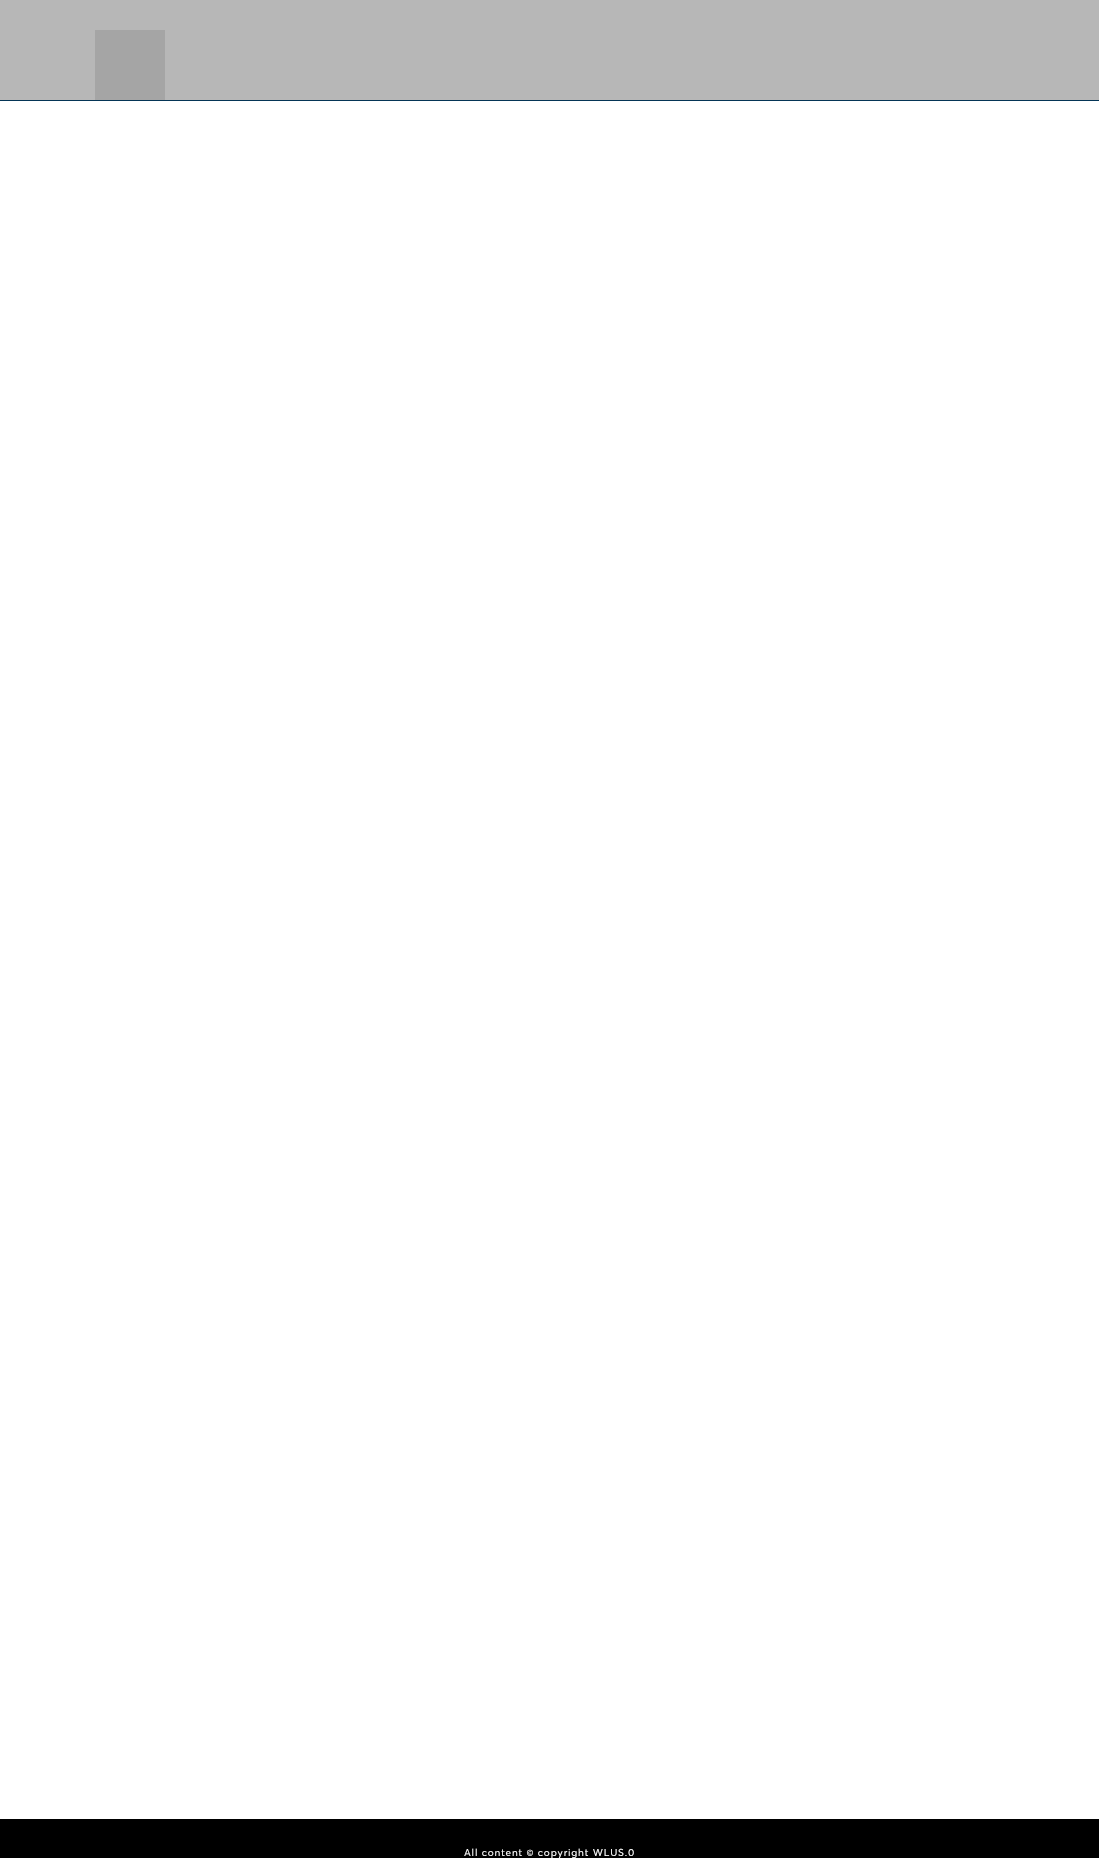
void draw(SkCanvas* c) {
SkPaint p;
p.setAntiAlias(true);
auto F=[&](const char* family, int weight, float size, bool italic = false){SkFontStyle style(weight, SkFontStyle::kNormal_Width,italic ? SkFontStyle::kItalic_Slant : SkFontStyle::kUpright_Slant);SkFont result(fontMgr->matchFamilyStyle(family, style), size);result.setSubpixel(true);return result;};
auto L=[&](const char* s, float x, float y, const SkFont& font, const SkPaint& ink, float letter, float word){std::vector<SkGlyphID> glyphs(font.countText(s, strlen(s), SkTextEncoding::kUTF8));std::vector<float> xs(glyphs.size());font.textToGlyphs(s, strlen(s), SkTextEncoding::kUTF8, glyphs);font.getXPos(glyphs, xs, x);float extra = 0;for (size_t i = 0; i < glyphs.size(); i++) {xs[i] += extra;extra += letter + word * (glyphs[i] == font.unicharToGlyph(' '));}c->drawTextBlob(SkTextBlob::MakeFromPosHGlyphs(glyphs, xs, y, font), 0, 0, ink);};
auto R=[&](float x, float y, float w, float h){c->drawRect(SkRect::MakeXYWH(x, y, w, h), p);};
c->clear(0xffffffff);
p.setColor(0xffb7b7b7);
R(0,0,1099,100);
p.setColor(0xff043556);
R(0,100,1099,1);
p.setColor(0xffa5a5a5);
R(95,30,70,70);
p.setColor(0xff000000);
R(0,1819,1099,39);
auto f1 = F("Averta",400,10);
p.setColor(0xffffffff);
L("All content © copyright WLUS.0",464,1856,f1,p,.8,0);
}
